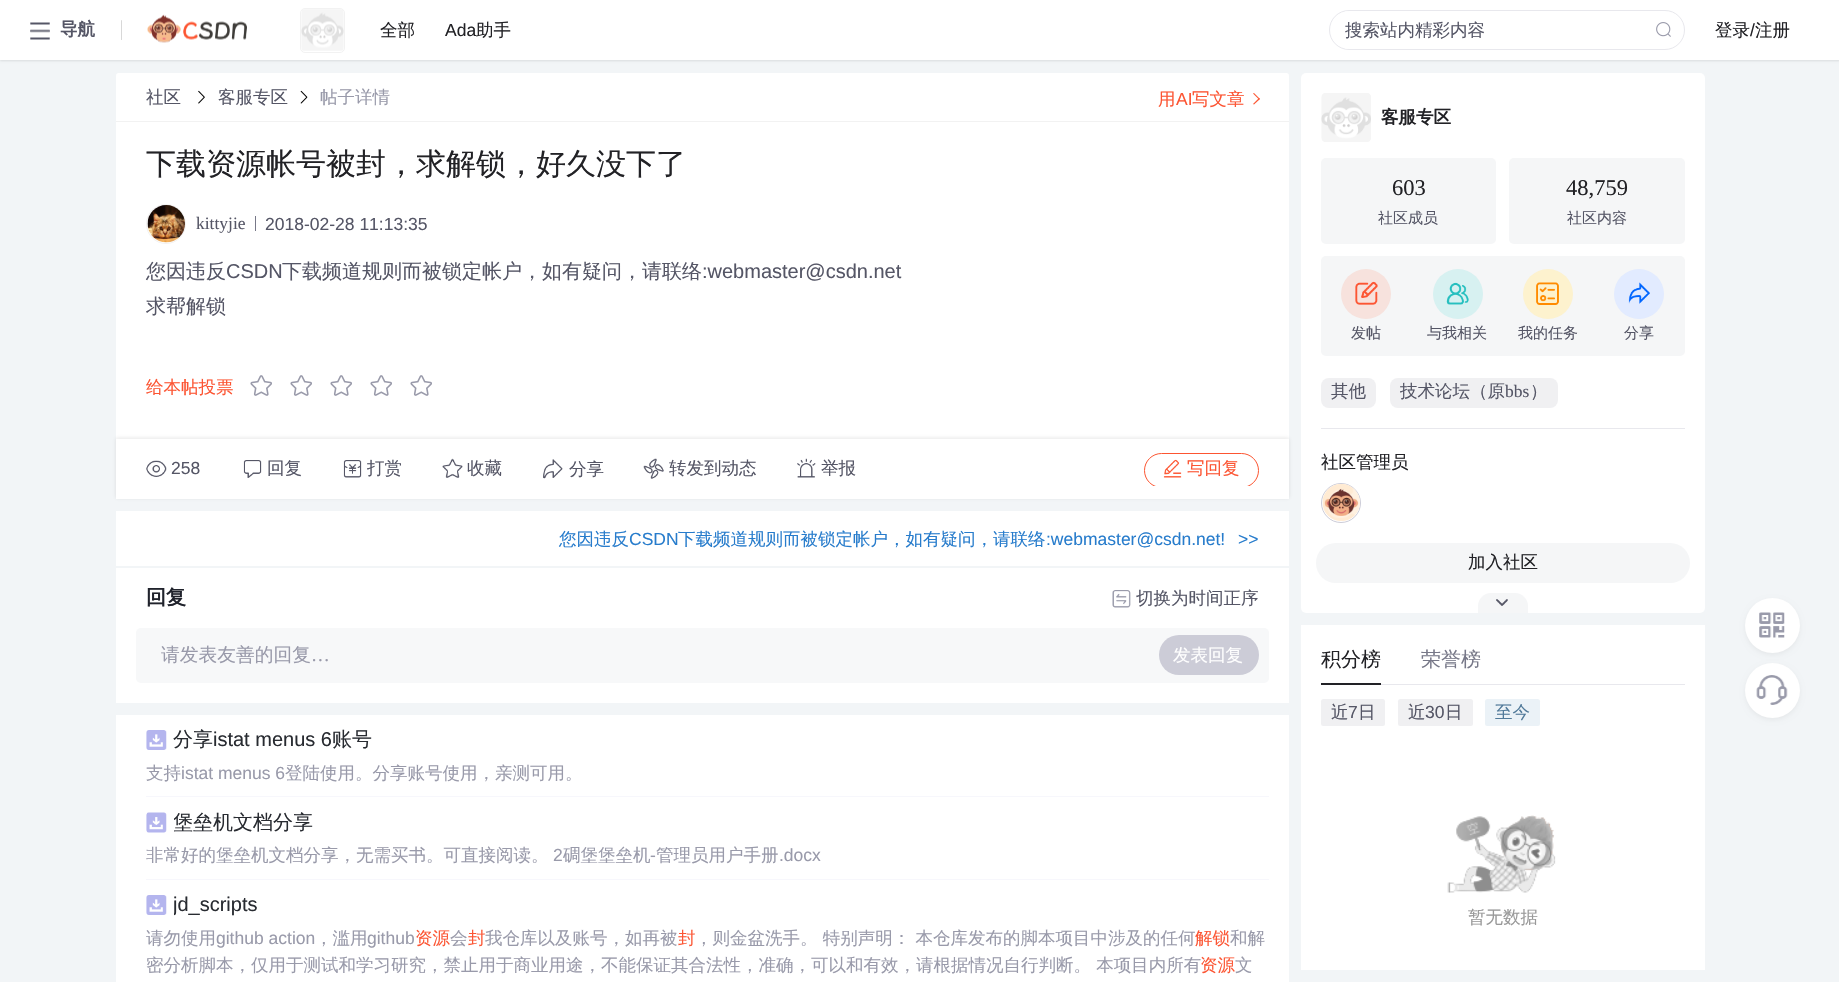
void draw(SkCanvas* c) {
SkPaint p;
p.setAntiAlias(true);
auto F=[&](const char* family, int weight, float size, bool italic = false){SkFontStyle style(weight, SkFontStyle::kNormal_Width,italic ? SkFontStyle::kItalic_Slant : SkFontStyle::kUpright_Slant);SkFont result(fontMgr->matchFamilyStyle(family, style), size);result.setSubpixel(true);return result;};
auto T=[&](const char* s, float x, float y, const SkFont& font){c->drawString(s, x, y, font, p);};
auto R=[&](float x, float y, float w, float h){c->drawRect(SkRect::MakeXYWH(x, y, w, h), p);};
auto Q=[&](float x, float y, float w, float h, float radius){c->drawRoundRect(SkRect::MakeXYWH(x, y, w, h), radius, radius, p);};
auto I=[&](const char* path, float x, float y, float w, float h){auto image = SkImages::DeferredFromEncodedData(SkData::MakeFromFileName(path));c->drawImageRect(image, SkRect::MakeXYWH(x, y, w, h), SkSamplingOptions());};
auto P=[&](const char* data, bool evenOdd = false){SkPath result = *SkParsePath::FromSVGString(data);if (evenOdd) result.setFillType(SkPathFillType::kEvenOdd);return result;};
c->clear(0xfff2f5f7);
p.setColor(0x1a000000);
p.setMaskFilter(SkMaskFilter::MakeBlur(kNormal_SkBlurStyle, 1));
c->drawRect(SkRect::MakeXYWH(0,1,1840,60),p);
p.setMaskFilter(nullptr);
p.setColor(0xffffffff);
R(0,0,1839,60);
I("1.png",30,22,20,18);
auto f1 = F("WenQuanYi Zen Hei",700,17.5);
p.setColor(0xff555666);
T("导航",60,35,f1);
p.setColor(0xffd8d8d8);
Q(121,20,1,20,.5);
I("2.png",147,14,100,29);
p.setStroke(true);
p.setStrokeWidth(1);
p.setColor(0xfff2f2f2);
c->drawRoundRect(SkRect::MakeXYWH(300.5,8.5,44,44),4.5,4.5,p);
I("3.png",301,9,43,42);
auto f2 = F("WenQuanYi Zen Hei",500,17.5);
p.setStroke(false);
p.setColor(0xff222226);
T("全部",380,36,f2);
auto f3 = F("Liberation Sans",400,17.5);
T("Ada",445,36,f3);
T("助手",476,36,f2);
p.setStroke(true);
p.setColor(0xffe8e8ed);
c->drawRoundRect(SkRect::MakeXYWH(1329.5,10.5,355,39),19.5,19.5,p);
c->save();
c->clipPath(P("M1349 11h316c10.5 0 19 8.5 19 19c0 10.5-8.5 19-19 19h-316c-10.5 0-19-8.5-19-19c0-10.5 8.5-19 19-19z"),true);
p.setStroke(false);
p.setColor(0xffffffff);
R(1345,11,306,38);
c->restore();
p.setColor(0xff555666);
T("搜索站内精彩内容",1345,36,f2);
I("4.png",1656,22,15,15);
p.setColor(0xff222226);
T("登录",1715,36,f2);
T("/",1750,36,f3);
T("注册",1755,36,f2);
p.setColor(0xffffffff);
c->drawPath(P("M118.5 73h1168c1.5 0 2.5 1 2.5 2.5v47.5h-1173v-47.5c0-1.5 1-2.5 2.5-2.5z"),p);
p.setColor(0xfff2f2f2);
R(116,121,1173,1);
p.setColor(0xff555666);
T("社区",146,103,f2);
I("5.png",198,90,7,14);
T("客服专区",218,103,f2);
I("6.png",300,90,8,14);
p.setColor(0xff999aaa);
T("帖子详情",320,103,f2);
p.setColor(0xfffc5533);
T("用",1158,105,f2);
T("AI",1176,105,f3);
T("写文章",1192,105,f2);
p.setColor(0xfffc5531);
c->drawPath(P("M1253 93.5l1-.5l6 6l-1 .5z"),p);
c->drawPath(P("M1253 104l6-6l1 1l-6 5.5z"),p);
p.setColor(0xffffffff);
R(116,123,1173,316);
auto f4 = F("WenQuanYi Zen Hei",500,30);
p.setColor(0xff222226);
T("下载资源帐号被封，求解锁，好久没下了",146,174,f4);
p.setStroke(true);
p.setColor(0xfff2f2f2);
c->drawCircle(166,224,19.5,p);
I("7.png",147,205,38,38);
auto f5 = F("Liberation Serif",400,17.5);
p.setStroke(false);
p.setColor(0xff555666);
T("kittyjie",196,229,f5);
p.setColor(0xff777888);
R(255,216,1,15);
p.setColor(0xff555666);
T("2018-02-28 11:13:35",265,230,f3);
auto f6 = F("WenQuanYi Zen Hei",500,20);
T("您因违反",146,278,f6);
auto f7 = F("Liberation Sans",400,20);
T("CSDN",226,278,f7);
T("下载频道规则而被锁定帐户，如有疑问，请联络",282,278,f6);
T(":webmaster@csdn.net",702,278,f7);
T("求帮解锁",146,313,f6);
p.setColor(0xfffc5533);
T("给本帖投票",146,393,f2);
I("8.png",250,375,22,21);
I("8.png",290,375,22,21);
I("8.png",330,375,22,21);
I("8.png",370,375,22,21);
I("8.png",410,375,22,21);
p.setColor(0x1a121212);
p.setMaskFilter(SkMaskFilter::MakeBlur(kNormal_SkBlurStyle, 2));
c->drawRect(SkRect::MakeXYWH(116,438,1173,60),p);
p.setMaskFilter(nullptr);
p.setColor(0xffffffff);
R(116,439,1173,60);
I("9.png",146,460,21,17);
p.setColor(0xff555666);
T("258",171,474,f3);
I("10.png",243,460,19,18);
T("回复",267,474,f2);
I("11.png",343,460,19,18);
T("打赏",367,474,f2);
I("12.png",442,458,21,20);
T("收藏",467,474,f2);
I("13.png",543,459,20,20);
T("分享",569,475,f2);
I("14.png",643,458,21,21);
T("转发到动态",669,474,f2);
I("15.png",797,458,19,20);
T("举报",821,474,f2);
c->save();
c->clipRect(SkRect::MakeXYWH(116,451,1173,35));
p.setStroke(true);
p.setColor(0xfffc5531);
c->drawRoundRect(SkRect::MakeXYWH(1144.5,453.5,114,34),17,17,p);
c->restore();
I("16.png",1163,459,19,19);
p.setStroke(false);
p.setColor(0xfffc5533);
T("写回复",1187,474,f2);
p.setColor(0xffffffff);
R(116,511,1173,55);
p.setColor(0xff277ccc);
T("您因违反",559,545,f2);
T("CSDN",629,545,f3);
T("下载频道规则而被锁定帐户，如有疑问，请联络",678,545,f2);
T(":webmaster@csdn.net!",1046,545,f3);
T(">>",1238,545,f3);
p.setColor(0xffffffff);
R(116,568,1173,135);
auto f8 = F("WenQuanYi Zen Hei",700,20);
p.setColor(0xff20232c);
T("回复",146,604,f8);
I("17.png",1112,590,19,18);
p.setColor(0xff555666);
T("切换为时间正序",1136,604,f2);
p.setColor(0xfff7f8f9);
Q(136,628,1133,55,5);
auto f9 = F("WenQuanYi Zen Hei",500,18.75);
p.setColor(0xff999aaa);
T("请发表友善的回复",161,661,f9);
auto f10 = F("Liberation Serif",400,18.75);
T("…",311,661,f10);
p.setColor(0xffccccd7);
Q(1159,635,100,40,20);
p.setColor(0xffffffff);
T("发表回复",1173,661,f2);
R(116,715,1173,267);
p.setColor(0xfff7f7fc);
R(146,796,1123,1);
I("18.png",146,730,21,20);
p.setColor(0xff282b31);
T("分享",173,746,f6);
T("istat menus 6",213,746,f7);
T("账号",332,746,f6);
p.setColor(0xff999aaa);
T("支持",146,779,f2);
T("istat menus 6",181,779,f3);
T("登陆使用。分享账号使用，亲测可用。",285,779,f2);
p.setColor(0xfff7f7fc);
R(146,879,1123,1);
I("19.png",146,812,21,21);
c->save();
c->clipRect(SkRect::MakeXYWH(174,808,140,30));
p.setColor(0xff282b31);
T("堡垒机文档分享",173,829,f6);
c->restore();
p.setColor(0xff999aaa);
T("非常好的堡垒机文档分享，无需买书。可直接阅读。",146,861,f2);
T("2",553,861,f3);
T("碉堡堡垒机",563,861,f2);
T("-",650,861,f3);
T("管理员用户手册",656,861,f2);
T(".docx",779,861,f3);
I("18.png",146,895,21,20);
c->save();
c->clipRect(SkRect::MakeXYWH(174,890,84,30));
p.setColor(0xff282b31);
T("jd_scripts",173,911,f7);
c->restore();
p.setColor(0xff999aaa);
T("请勿使用",146,944,f2);
T("github action",216,944,f3);
T("，滥用",315,944,f2);
T("github",367,944,f3);
p.setColor(0xfffc5533);
T("资源",415,944,f2);
p.setColor(0xff999aaa);
T("会",450,944,f2);
p.setColor(0xfffc5533);
T("封",468,944,f2);
p.setColor(0xff999aaa);
T("我仓库以及账号，如再被",485,944,f2);
p.setColor(0xfffc5533);
T("封",678,944,f2);
p.setColor(0xff999aaa);
T("，则金盆洗手。 特别声明： 本仓库发布的脚本项目中涉及的任何",695,944,f2);
p.setColor(0xfffc5533);
T("解锁",1195,944,f2);
p.setColor(0xff999aaa);
T("和解",1230,944,f2);
T("密分析脚本，仅用于测试和学习研究，禁止用于商业用途，不能保证其合法性，准确，可以和有效，请根据情况自行判断。 本项目内所有",146,971,f2);
p.setColor(0xfffc5533);
T("资源",1200,971,f2);
p.setColor(0xff999aaa);
T("文",1235,971,f2);
p.setColor(0xffffffff);
Q(1301,73,404,540,5);
I("20.png",1321,93,50,49);
p.setColor(0xff222226);
T("客服专区",1381,123,f1);
p.setColor(0xfff5f6f7);
Q(1321,158,175,86,5);
auto f11 = F("Liberation Serif",400,22.5);
p.setColor(0xff222226);
T("603",1392,195,f11);
auto f12 = F("WenQuanYi Zen Hei",500,15);
p.setColor(0xff555666);
T("社区成员",1378,223,f12);
p.setColor(0xfff5f6f7);
Q(1509,158,176,86,5);
p.setColor(0xff222226);
T("48,759",1566,195,f11);
p.setColor(0xff555666);
T("社区内容",1567,223,f12);
p.setColor(0xfff5f6f7);
Q(1321,256,364,100,5);
p.setColor(0xfff7e2dd);
c->drawCircle(1366,294,25,p);
I("21.png",1355,281,23,24);
p.setColor(0xff555666);
T("发帖",1351,338,f12);
p.setColor(0xffd7f1f1);
c->drawCircle(1458,294,25,p);
I("22.png",1446,282,23,23);
p.setColor(0xff555666);
T("与我相关",1427,338,f12);
p.setColor(0xfffdf2ce);
c->drawCircle(1548,294,25,p);
I("23.png",1536,282,23,23);
p.setColor(0xff555666);
T("我的任务",1518,338,f12);
p.setColor(0xffe2ebff);
c->drawCircle(1639,294,25,p);
I("24.png",1628,282,22,22);
p.setColor(0xff555666);
T("分享",1624,338,f12);
p.setColor(0xfff0f0f2);
Q(1321,378,55,30,8);
p.setColor(0xff555666);
T("其他",1331,397,f2);
p.setColor(0xfff0f0f2);
Q(1390,378,168,30,8);
p.setColor(0xff555666);
T("技术论坛（原",1400,397,f2);
T("bbs",1505,397,f5);
T("）",1530,397,f2);
p.setColor(0xffe8e8ed);
R(1321,428,364,1);
p.setColor(0xff222226);
T("社区管理员",1321,468,f2);
p.setStroke(true);
p.setColor(0xffccccd8);
c->drawCircle(1341,503,19.5,p);
I("25.png",1322,484,38,37);
p.setStroke(false);
p.setColor(0xfff5f6f7);
Q(1316,543,374,40,20);
p.setColor(0xff222226);
T("加入社区",1468,568,f2);
p.setColor(0xfff5f6f7);
c->drawPath(P("M1491 593h24c7 0 13 6 13 13v7h-50v-7c0-7 6-13 13-13z"),p);
I("26.png",1496,599,12,7);
p.setColor(0xffffffff);
R(1301,625,404,345);
p.setColor(0xff222226);
T("积分榜",1321,666,f6);
p.setColor(0xff777888);
T("荣誉榜",1421,666,f6);
p.setColor(0xff222226);
R(1321,683,60,2);
p.setColor(0xffe8e8ed);
R(1381,684,304,1);
p.setColor(0xfff0f0f2);
Q(1321,699,64,27,2.5);
p.setColor(0xff555666);
T("近",1331,718,f2);
T("7",1348,718,f3);
T("日",1358,718,f2);
p.setColor(0xfff0f0f2);
Q(1398,699,75,27,2.5);
p.setColor(0xff555666);
T("近",1408,718,f2);
T("30",1425,718,f3);
T("日",1445,718,f2);
p.setColor(0xffebf2f7);
Q(1485,699,55,27,2.5);
p.setColor(0xff507999);
T("至今",1495,718,f2);
I("27.png",1447,815,109,78);
p.setColor(0xff999999);
T("暂无数据",1468,923,f2);
p.setColor(0x0d000000);
p.setMaskFilter(SkMaskFilter::MakeBlur(kNormal_SkBlurStyle, 2.5));
c->drawRoundRect(SkRect::MakeXYWH(1745,600,55,55),27.5,27.5,p);
p.setMaskFilter(nullptr);
p.setColor(0xffffffff);
c->drawCircle(1772.5,625.5,27.5,p);
I("28.png",1759,612,26,26);
p.setColor(0x0d000000);
p.setMaskFilter(SkMaskFilter::MakeBlur(kNormal_SkBlurStyle, 2.5));
c->drawRoundRect(SkRect::MakeXYWH(1745,665,55,55),27.5,27.5,p);
p.setMaskFilter(nullptr);
p.setColor(0xffffffff);
c->drawCircle(1772.5,690.5,27.5,p);
I("29.png",1756,675,32,30);
}
